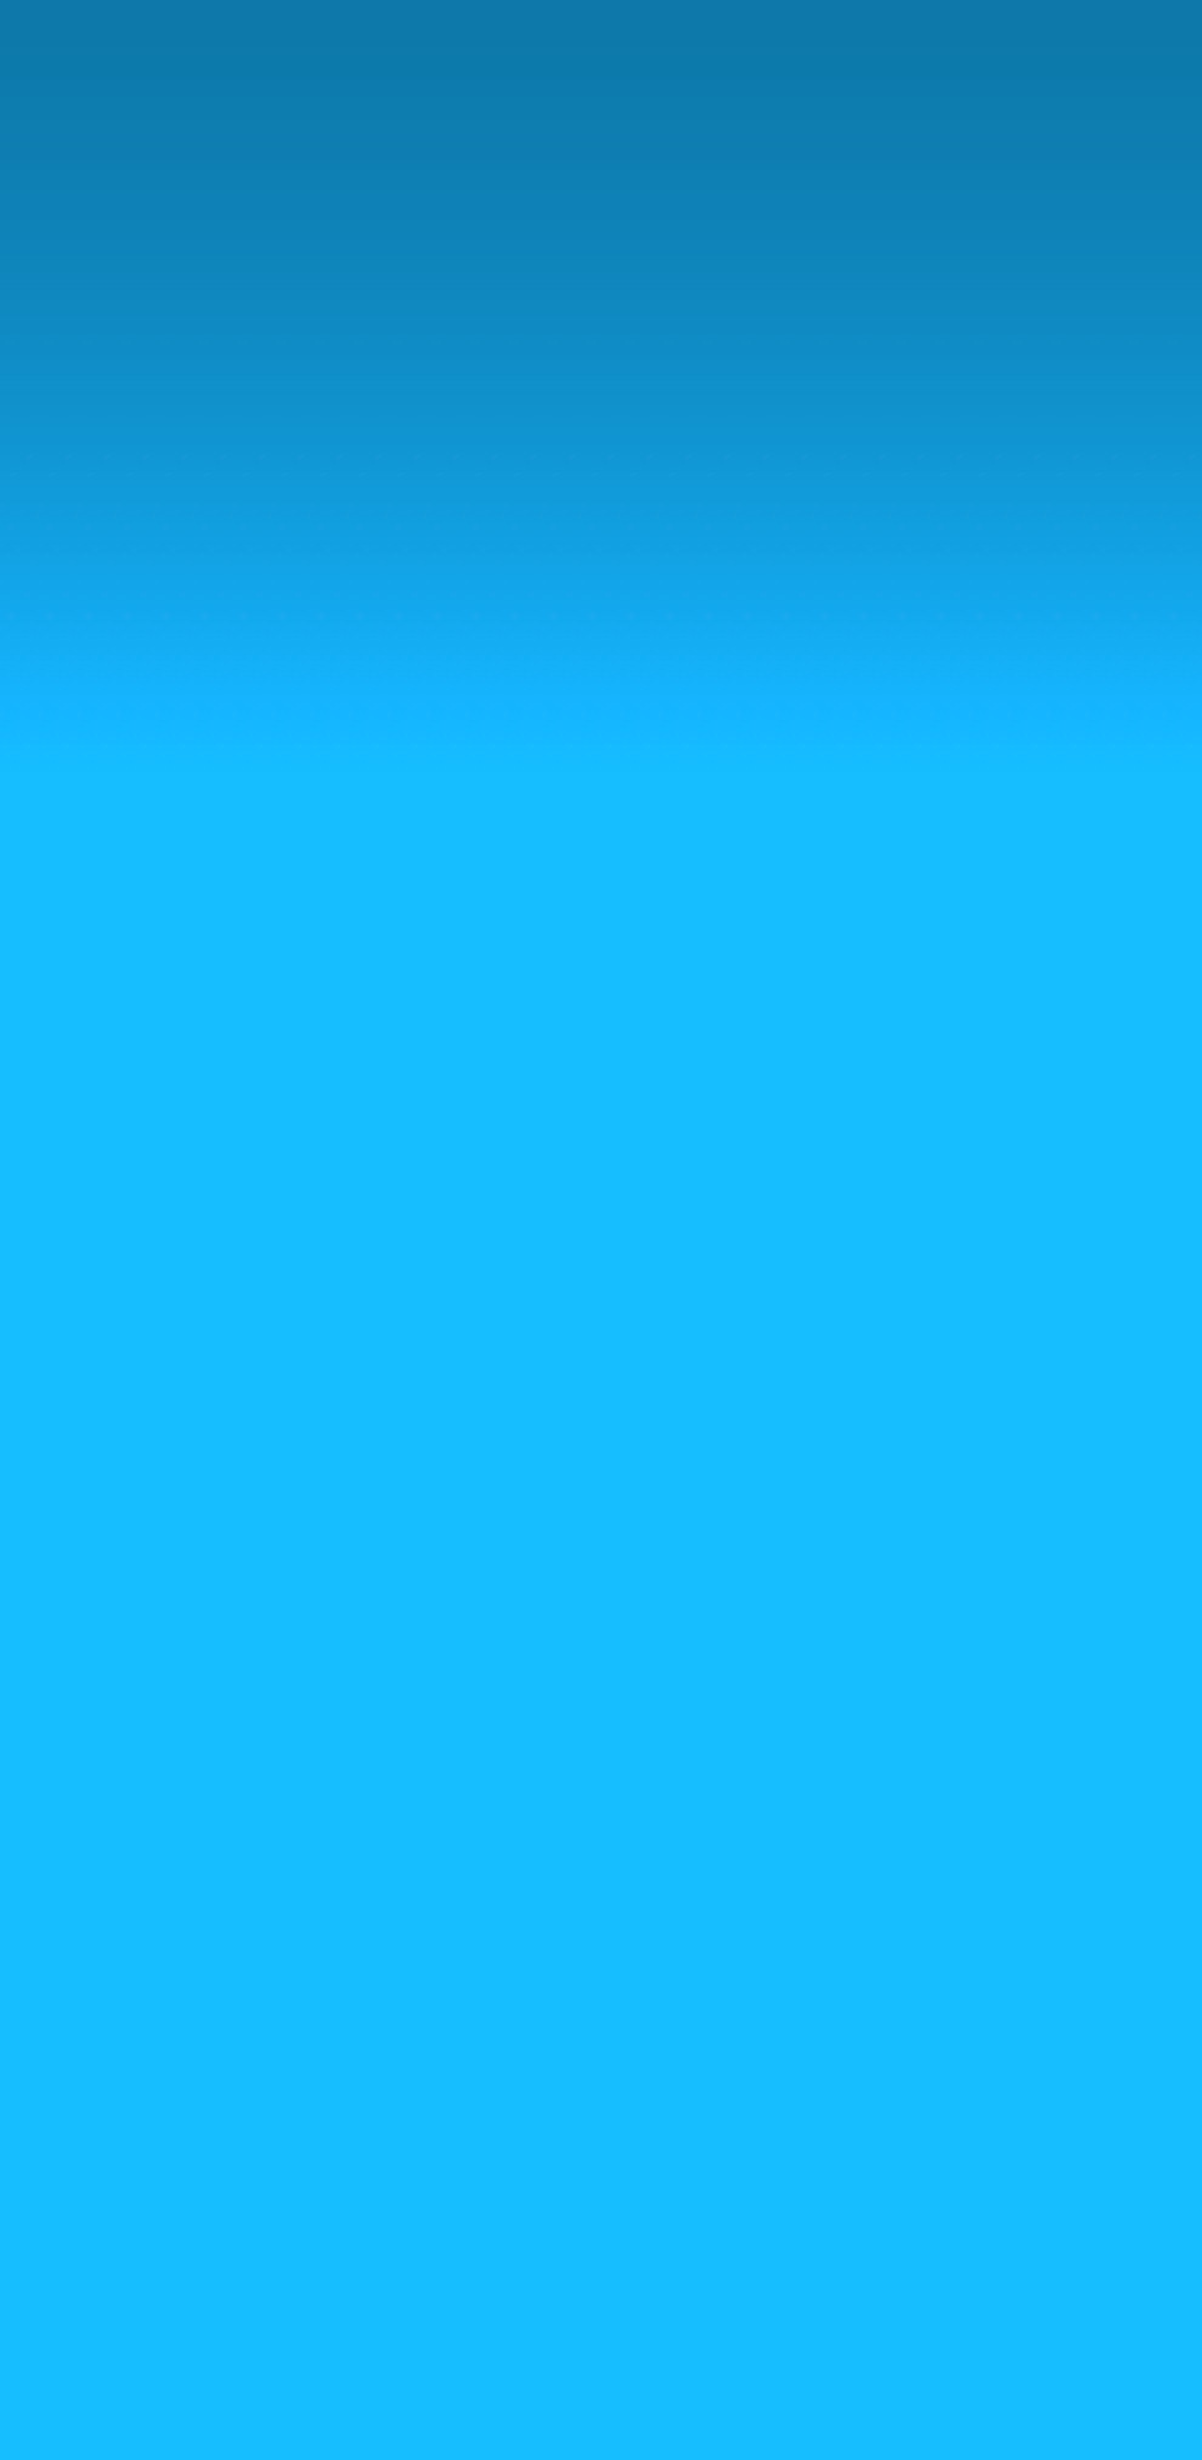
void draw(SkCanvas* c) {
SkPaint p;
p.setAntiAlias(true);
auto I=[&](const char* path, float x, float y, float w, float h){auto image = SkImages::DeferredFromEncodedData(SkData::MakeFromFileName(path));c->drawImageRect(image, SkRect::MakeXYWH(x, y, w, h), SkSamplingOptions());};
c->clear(0xffffffff);
I("1.png",0,0,1202,2460);
}
